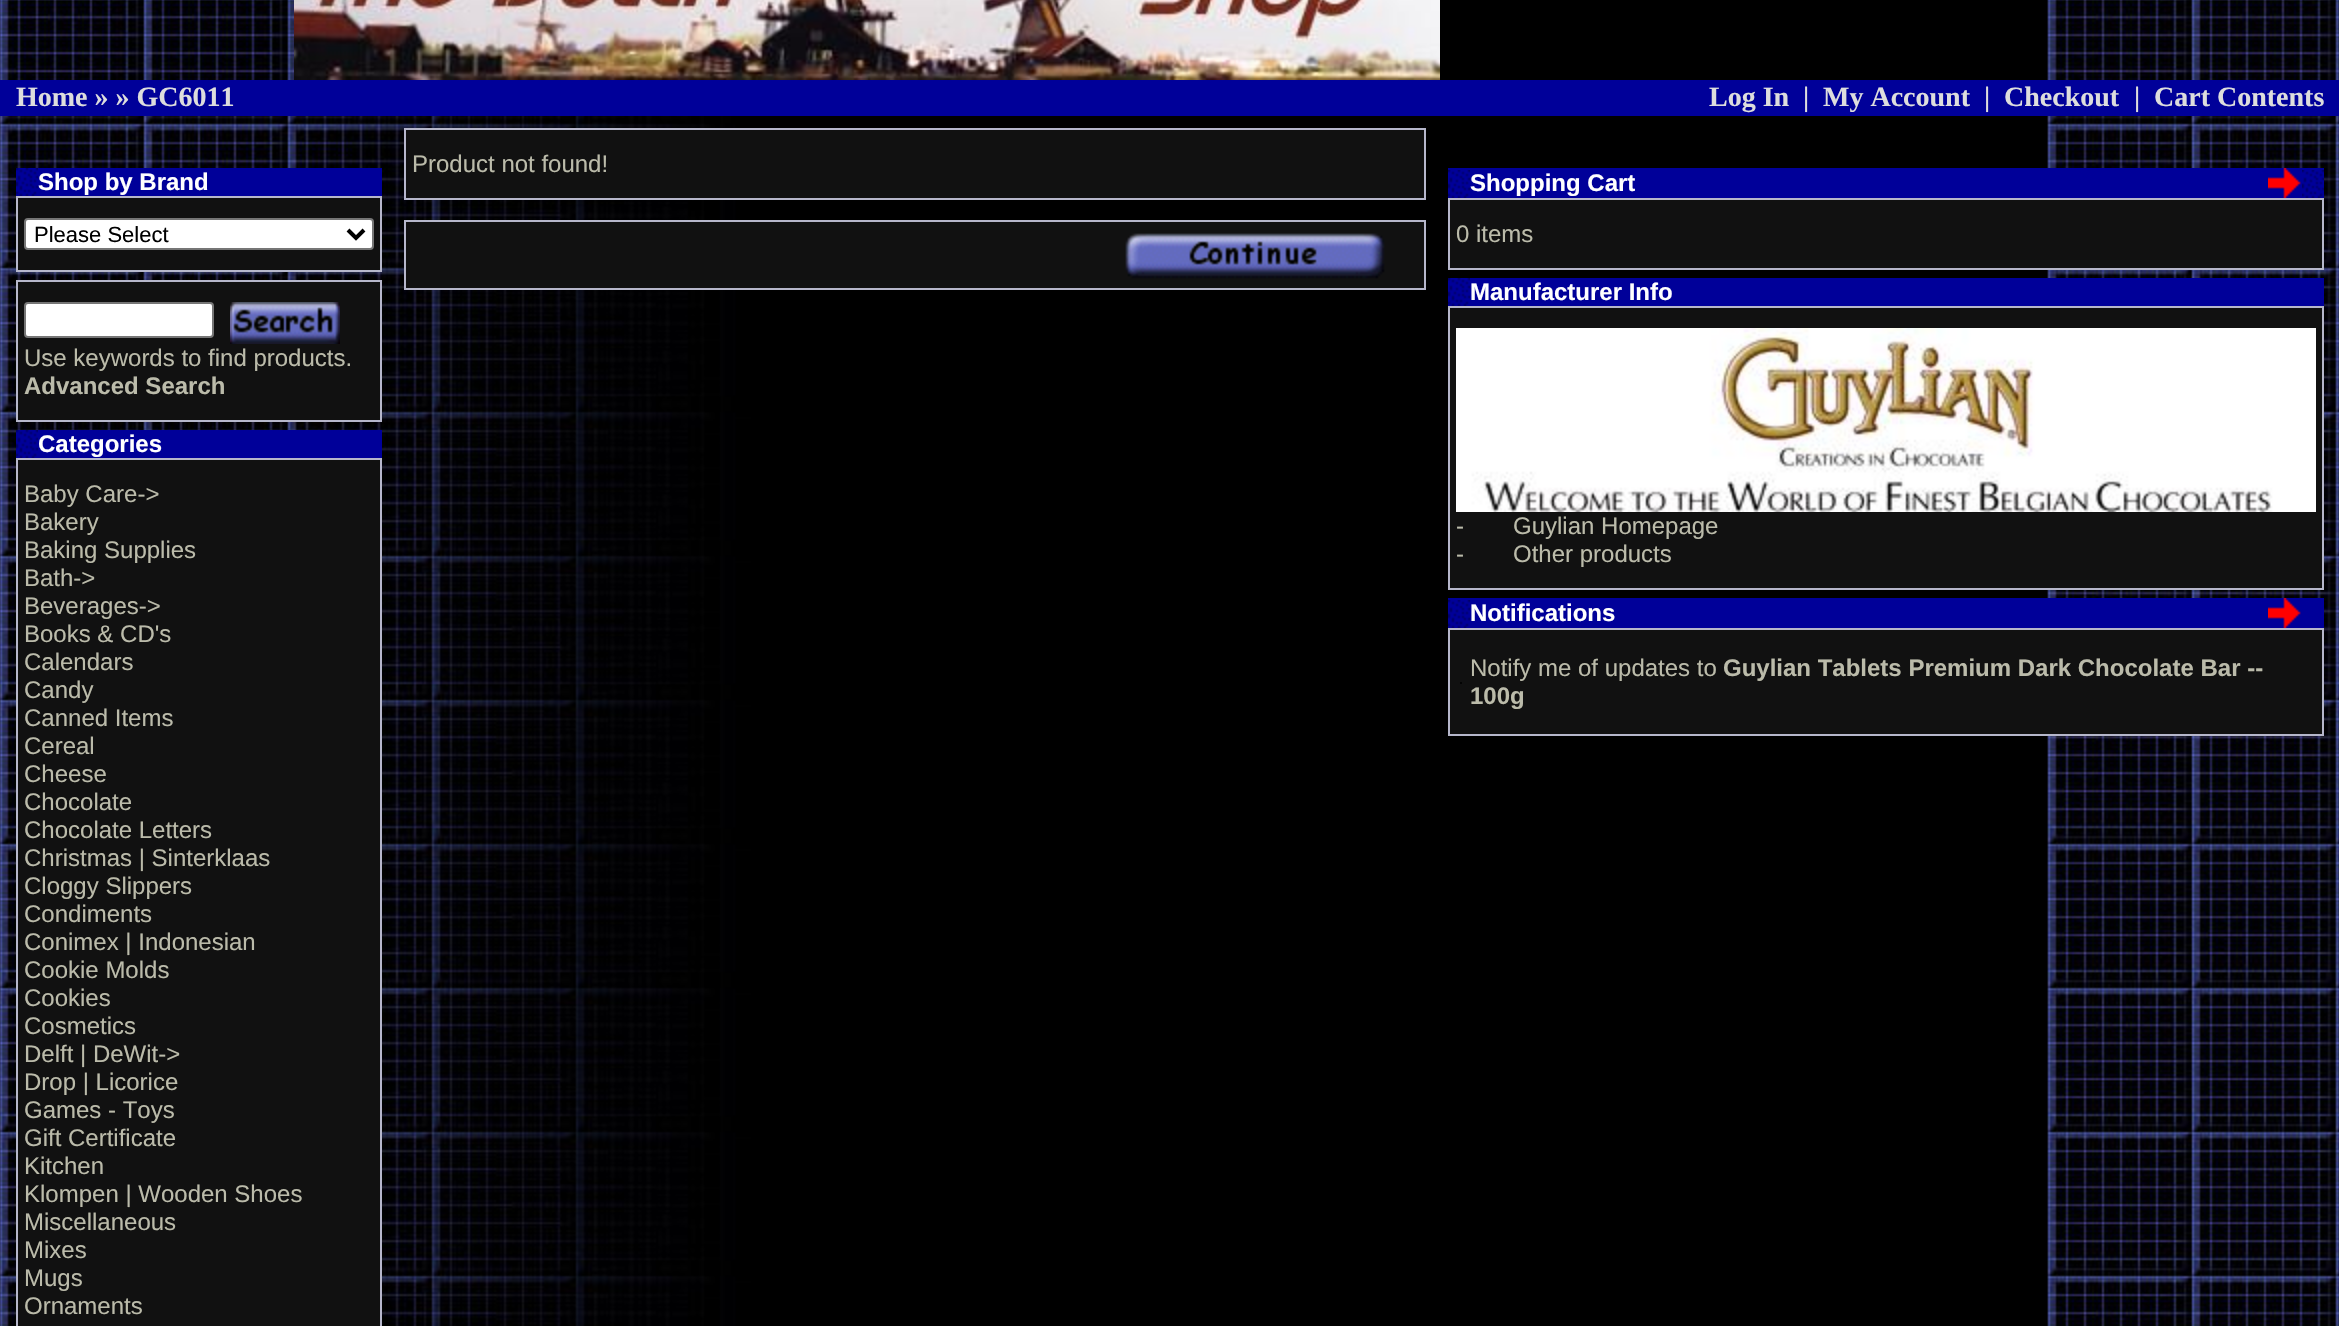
void draw(SkCanvas* c) {
SkPaint p;
p.setAntiAlias(true);
auto F=[&](const char* family, int weight, float size, bool italic = false){SkFontStyle style(weight, SkFontStyle::kNormal_Width,italic ? SkFontStyle::kItalic_Slant : SkFontStyle::kUpright_Slant);SkFont result(fontMgr->matchFamilyStyle(family, style), size);result.setSubpixel(true);return result;};
auto T=[&](const char* s, float x, float y, const SkFont& font){c->drawString(s, x, y, font, p);};
auto R=[&](float x, float y, float w, float h){c->drawRect(SkRect::MakeXYWH(x, y, w, h), p);};
auto I=[&](const char* path, float x, float y, float w, float h){auto image = SkImages::DeferredFromEncodedData(SkData::MakeFromFileName(path));c->drawImageRect(image, SkRect::MakeXYWH(x, y, w, h), SkSamplingOptions());};
auto P=[&](const char* data, bool evenOdd = false){SkPath result = *SkParsePath::FromSVGString(data);if (evenOdd) result.setFillType(SkPathFillType::kEvenOdd);return result;};
c->clear(0xffffffff);
I("1.png",0,0,2339,1326);
I("2.png",294,0,1146,80);
p.setColor(0xff000099);
R(0,80,2339,36);
auto f1 = F("Liberation Serif",700,28);
p.setColor(0xffdddddd);
T("Home » » GC6011",16,106,f1);
T("Log In",1709,106,f1);
T("|",1803,106,f1);
T("My Account",1823,106,f1);
T("|",1984,106,f1);
T("Checkout",2004,106,f1);
T("|",2134,106,f1);
T("Cart Contents",2154,106,f1);
p.setColor(0xffb6b7cb);
R(404,128,1022,72);
p.setColor(0xff111111);
R(406,130,1018,68);
auto f2 = F("Liberation Sans",400,24);
p.setColor(0xffbbbbaa);
T("Product not found!",412,172,f2);
p.setColor(0xffb6b7cb);
R(404,220,1022,70);
p.setColor(0xff111111);
R(406,222,1018,66);
I("3.png",1125,233,260,46);
I("4.png",16,168,22,28);
p.setColor(0xff000099);
R(38,168,344,28);
auto f3 = F("Liberation Sans",700,24);
p.setColor(0xffffffff);
T("Shop by Brand",38,190,f3);
p.setColor(0xffb6b7cb);
R(16,196,366,76);
p.setColor(0xff111111);
R(18,198,362,72);
p.setColor(0xffffffff);
c->drawRoundRect(SkRect::MakeXYWH(25,219,348,30),3,3,p);
p.setStroke(true);
p.setStrokeWidth(2);
p.setColor(0xff767676);
c->drawRoundRect(SkRect::MakeXYWH(25,219,348,30),3,3,p);
p.setStrokeWidth(4);
p.setColor(0xff000000);
c->drawPath(P("M348 230l8 8l8-8"),p);
auto f4 = F("Liberation Sans",400,22);
p.setStroke(false);
T("Please Select",34,242,f4);
p.setColor(0xffb6b7cb);
R(16,280,366,142);
p.setColor(0xff111111);
R(18,282,362,138);
p.setColor(0xffffffff);
c->drawRoundRect(SkRect::MakeXYWH(25,303,188,34),3,3,p);
p.setStroke(true);
p.setStrokeWidth(2);
p.setColor(0xff767676);
c->drawRoundRect(SkRect::MakeXYWH(25,303,188,34),3,3,p);
I("5.png",230,302,110,42);
p.setStroke(false);
p.setColor(0xffbbbbaa);
T("Use keywords to find products.",24,366,f2);
T("Advanced Search",24,394,f3);
I("4.png",16,430,22,28);
p.setColor(0xff000099);
R(38,430,344,28);
p.setColor(0xffffffff);
T("Categories",38,452,f3);
p.setColor(0xffb6b7cb);
R(16,458,366,868);
p.setColor(0xff111111);
R(18,460,362,866);
p.setColor(0xffbbbbaa);
T("Baby Care->",24,502,f2);
T("Bakery",24,530,f2);
T("Baking Supplies",24,558,f2);
T("Bath->",24,586,f2);
T("Beverages->",24,614,f2);
T("Books & CD's",24,642,f2);
T("Calendars",24,670,f2);
T("Candy",24,698,f2);
T("Canned Items",24,726,f2);
T("Cereal",24,754,f2);
T("Cheese",24,782,f2);
T("Chocolate",24,810,f2);
T("Chocolate Letters",24,838,f2);
T("Christmas | Sinterklaas",24,866,f2);
T("Cloggy Slippers",24,894,f2);
T("Condiments",24,922,f2);
T("Conimex | Indonesian",24,950,f2);
T("Cookie Molds",24,978,f2);
T("Cookies",24,1006,f2);
T("Cosmetics",24,1034,f2);
T("Delft | DeWit->",24,1062,f2);
T("Drop | Licorice",24,1090,f2);
T("Games - Toys",24,1118,f2);
T("Gift Certificate",24,1146,f2);
T("Kitchen",24,1174,f2);
T("Klompen | Wooden Shoes",24,1202,f2);
T("Miscellaneous",24,1230,f2);
T("Mixes",24,1258,f2);
T("Mugs",24,1286,f2);
T("Ornaments",24,1314,f2);
p.setColor(0xff000099);
R(1448,168,22,2);
I("4.png",1448,170,22,28);
R(1470,168,798,30);
p.setColor(0xffffffff);
T("Shopping Cart",1470,191,f3);
p.setColor(0xff000099);
R(2301,168,23,30);
I("6.png",2268,168,33,30);
I("4.png",2302,170,22,28);
p.setColor(0xffb6b7cb);
R(1448,198,876,72);
p.setColor(0xff111111);
R(1450,200,872,68);
p.setColor(0xffbbbbaa);
T("0 items",1456,242,f2);
I("4.png",1448,278,22,28);
p.setColor(0xff000099);
R(1470,278,854,28);
p.setColor(0xffffffff);
T("Manufacturer Info",1470,300,f3);
p.setColor(0xffb6b7cb);
R(1448,306,876,284);
p.setColor(0xff111111);
R(1450,308,872,280);
I("7.png",1456,328,860,184);
p.setColor(0xffbbbbaa);
T("-",1456,534,f2);
T("Guylian Homepage",1513,534,f2);
T("-",1456,562,f2);
T("Other products",1513,562,f2);
p.setColor(0xff000099);
R(1448,598,22,2);
I("4.png",1448,600,22,28);
R(1470,598,798,30);
p.setColor(0xffffffff);
T("Notifications",1470,621,f3);
p.setColor(0xff000099);
R(2301,598,23,30);
I("6.png",2268,598,33,30);
p.setColor(0xffb6b7cb);
R(1448,628,876,108);
p.setColor(0xff111111);
R(1450,630,872,104);
p.setColor(0xff030303);
R(1460,682,2,2);
p.setColor(0xffbbbbaa);
T("Notify me of updates to",1470,676,f2);
T("Guylian Tablets Premium Dark Chocolate Bar --",1723,676,f3);
T("100g",1470,704,f3);
}
